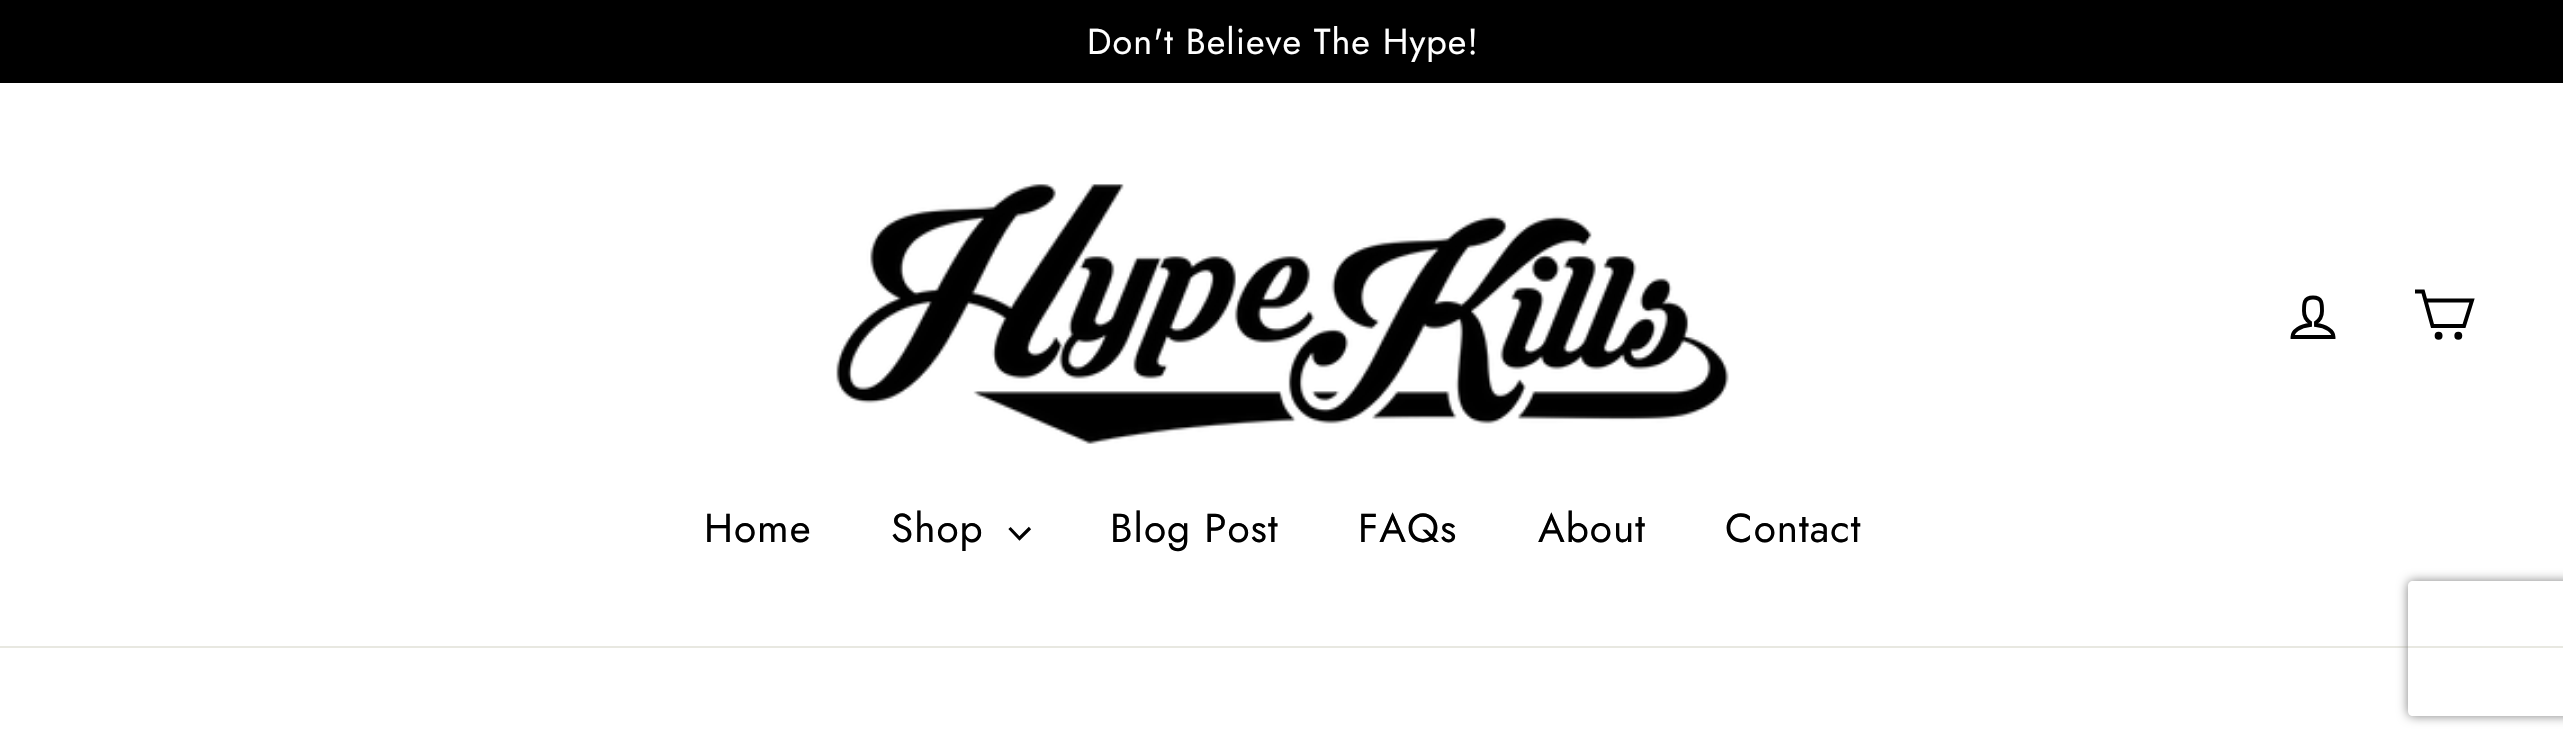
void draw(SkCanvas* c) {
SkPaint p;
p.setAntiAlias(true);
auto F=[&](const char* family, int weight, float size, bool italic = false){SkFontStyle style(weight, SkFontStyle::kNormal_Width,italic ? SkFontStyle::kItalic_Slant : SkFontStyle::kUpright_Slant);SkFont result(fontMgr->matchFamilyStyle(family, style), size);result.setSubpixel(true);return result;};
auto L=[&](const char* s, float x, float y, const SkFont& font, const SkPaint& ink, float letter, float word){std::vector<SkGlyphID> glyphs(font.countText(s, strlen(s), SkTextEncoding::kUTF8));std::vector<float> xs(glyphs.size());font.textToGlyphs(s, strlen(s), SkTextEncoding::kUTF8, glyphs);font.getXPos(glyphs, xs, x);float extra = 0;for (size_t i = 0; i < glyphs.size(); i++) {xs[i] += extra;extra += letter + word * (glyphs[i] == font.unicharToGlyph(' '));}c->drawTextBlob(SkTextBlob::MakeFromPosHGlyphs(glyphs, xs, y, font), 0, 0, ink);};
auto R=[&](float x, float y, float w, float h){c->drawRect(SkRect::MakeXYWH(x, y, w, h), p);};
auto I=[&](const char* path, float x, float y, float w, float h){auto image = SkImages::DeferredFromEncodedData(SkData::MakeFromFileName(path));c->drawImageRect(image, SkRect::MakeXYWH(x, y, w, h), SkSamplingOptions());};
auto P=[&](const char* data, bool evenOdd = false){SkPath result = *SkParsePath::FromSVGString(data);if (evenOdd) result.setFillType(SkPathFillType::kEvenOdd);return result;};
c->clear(0xffffffff);
p.setColor(0xff000000);
R(0,0,2563,83);
auto f1 = F("Jost",400,36);
p.setColor(0xffffffff);
L("Don't Believe The Hype!",1087,54,f1,p,1,0);
p.setColor(0xffe8e8e1);
R(0,646,2563,2);
I("1.png",836,184,893,260);
p.setStroke(true);
p.setStrokeWidth(3.9);
p.setColor(0xff000000);
c->drawPath(P("M2316 325v-2.5c3-2 6-6.5 6-11.5c0-7.5 0-13.5-9-13.5c-9 0-9 6-9 13.5c0 5 3 9.5 6 11.5v2.5c-10 1-17.5 6-17.5 12h41c0-6-7.5-11-17.5-12z"),p);
c->drawPath(P("M2426 300.5h46l-8 25.5h-31.5l-9.5-34.5h-8"),p);
c->drawCircle(2438.6,335.7,2,p);
c->drawCircle(2458.3,335.7,2,p);
auto f2 = F("Jost",400,40.5);
p.setStroke(false);
L("Home",704,542,f2,p,1,0);
L("Shop",891,542,f2,p,1,0);
p.setStroke(true);
p.setStrokeWidth(3.2);
c->drawPath(P("M1009.5 528l10 10.5l10.5-10.5"),p);
p.setStroke(false);
L("Blog Post",1110,542,f2,p,1,0);
L("FAQs",1358,542,f2,p,1,0);
L("About",1538,542,f2,p,1,0);
L("Contact",1725,542,f2,p,1,0);
c->save();
c->clipPath(P("M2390 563h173v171h-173zm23 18h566c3 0 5 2 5 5v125c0 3-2 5-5 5h-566c-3 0-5-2-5-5v-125c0-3 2-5 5-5z",true),true);
p.setColor(0xff808080);
p.setMaskFilter(SkMaskFilter::MakeBlur(kNormal_SkBlurStyle, 5.5));
c->drawRoundRect(SkRect::MakeXYWH(2408,581,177,135),5,5,p);
p.setMaskFilter(nullptr);
c->restore();
}
